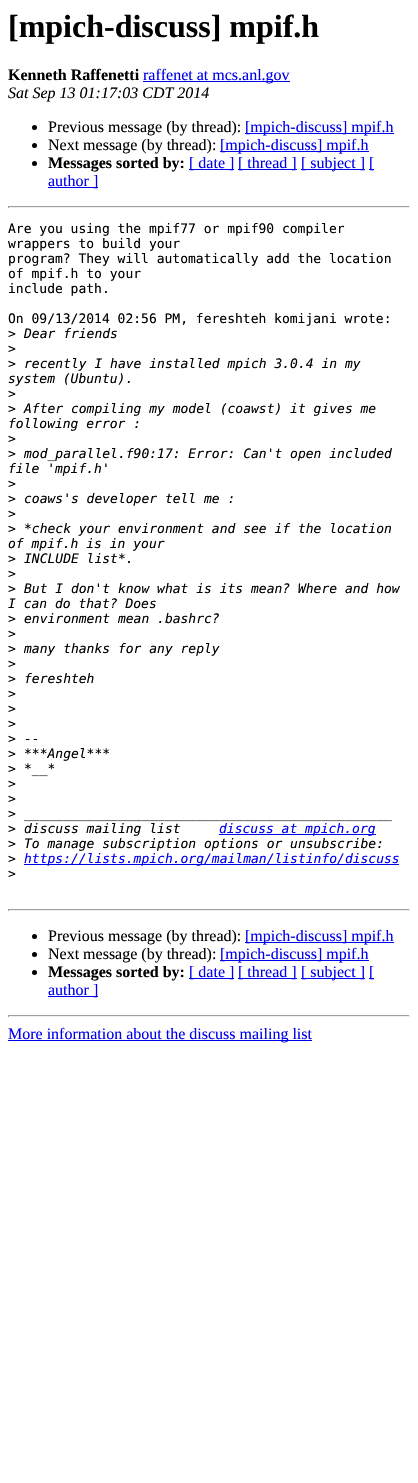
void draw(SkCanvas* c) {
SkPaint p;
p.setAntiAlias(true);
auto F=[&](const char* family, int weight, float size, bool italic = false){SkFontStyle style(weight, SkFontStyle::kNormal_Width,italic ? SkFontStyle::kItalic_Slant : SkFontStyle::kUpright_Slant);SkFont result(fontMgr->matchFamilyStyle(family, style), size);result.setSubpixel(true);return result;};
auto T=[&](const char* s, float x, float y, const SkFont& font){c->drawString(s, x, y, font, p);};
auto R=[&](float x, float y, float w, float h){c->drawRect(SkRect::MakeXYWH(x, y, w, h), p);};
c->clear(0xffffffff);
auto f1 = F("Liberation Serif",700,32);
p.setColor(0xff000000);
T("[mpich-discuss] mpif.h",8,37,f1);
auto f2 = F("Liberation Serif",700,16);
T("Kenneth Raffenetti",8,80,f2);
p.setColor(0xff0000ee);
R(143,81,147,1);
auto f3 = F("Liberation Serif",400,16);
T("raffenet at mcs.anl.gov",143,80,f3);
auto f4 = F("Liberation Serif",400,16,true);
p.setColor(0xff000000);
T("Sat Sep 13 01:17:03 CDT 2014",8,98,f4);
c->drawCircle(34.5,127.5,2.5,p);
T("Previous message (by thread):",48,132,f3);
p.setColor(0xff0000ee);
R(245,133,149,1);
T("[mpich-discuss] mpif.h",245,132,f3);
p.setColor(0xff000000);
c->drawCircle(34.5,145.5,2.5,p);
T("Next message (by thread):",48,150,f3);
p.setColor(0xff0000ee);
R(220,151,149,1);
T("[mpich-discuss] mpif.h",220,150,f3);
p.setColor(0xff000000);
c->drawCircle(34.5,163.5,2.5,p);
T("Messages sorted by:",48,168,f2);
p.setColor(0xff0000ee);
R(189,169,45,1);
T("[ date ]",189,168,f3);
R(238,169,59,1);
T("[ thread ]",238,168,f3);
R(301,169,64,1);
T("[ subject ]",301,168,f3);
R(369,169,5,1);
T("[",369,168,f3);
R(48,187,50,1);
T("author ]",48,186,f3);
p.setColor(0xff9f9f9f);
R(8,206,402,1);
p.setColor(0xffeeeeee);
R(409,206,1,2);
R(8,207,402,1);
p.setColor(0xff9f9f9f);
R(8,206,1,2);
auto f5 = F("DejaVu Sans Mono",400,13);
p.setColor(0xff000000);
T("Are you using the mpif77 or mpif90 compiler",8,233,f5);
T("wrappers to build your",8,248,f5);
T("program? They will automatically add the location",8,263,f5);
T("of mpif.h to your",8,278,f5);
T("include path.",8,293,f5);
T("On 09/13/2014 02:56 PM, fereshteh komijani wrote:",8,323,f5);
T(">",8,338,f5);
auto f6 = F("DejaVu Sans Mono",400,13,true);
T("Dear friends",24,338,f6);
T(">",8,353,f5);
T(">",8,368,f5);
T("recently I have installed mpich 3.0.4 in my",24,368,f6);
T("system (Ubuntu).",8,383,f6);
T(">",8,398,f5);
T(">",8,413,f5);
T("After compiling my model (coawst) it gives me",24,413,f6);
T("following error :",8,428,f6);
T(">",8,443,f5);
T(">",8,458,f5);
T("mod_parallel.f90:17: Error: Can't open included",24,458,f6);
T("file 'mpif.h'",8,473,f6);
T(">",8,488,f5);
T(">",8,503,f5);
T("coaws's developer tell me :",24,503,f6);
T(">",8,518,f5);
T(">",8,533,f5);
T("*check your environment and see if the location",24,533,f6);
T("of mpif.h is in your",8,548,f6);
T(">",8,563,f5);
T("INCLUDE list*.",24,563,f6);
T(">",8,578,f5);
T(">",8,593,f5);
T("But I don't know what is its mean? Where and how",24,593,f6);
T("I can do that? Does",8,608,f6);
T(">",8,623,f5);
T("environment mean .bashrc?",24,623,f6);
T(">",8,638,f5);
T(">",8,653,f5);
T("many thanks for any reply",24,653,f6);
T(">",8,668,f5);
T(">",8,683,f5);
T("fereshteh",24,683,f6);
T(">",8,698,f5);
T(">",8,713,f5);
T(">",8,728,f5);
T(">",8,743,f5);
T("--",24,743,f6);
T(">",8,758,f5);
T("***Angel***",24,758,f6);
T(">",8,773,f5);
T("*__*",24,773,f6);
T(">",8,788,f5);
T(">",8,803,f5);
T(">",8,818,f5);
T("_______________________________________________",24,818,f6);
T(">",8,833,f5);
T("discuss mailing list",24,833,f6);
p.setColor(0xff0000ee);
R(219,834,157,1);
T("discuss at mpich.org",219,833,f6);
p.setColor(0xff000000);
T(">",8,848,f5);
T("To manage subscription options or unsubscribe:",24,848,f6);
T(">",8,863,f5);
p.setColor(0xff0000ee);
R(24,864,375,1);
T("https://lists.mpich.org/mailman/listinfo/discuss",24,863,f6);
p.setColor(0xff000000);
T(">",8,878,f5);
p.setColor(0xff9f9f9f);
R(8,909,402,1);
p.setColor(0xffeeeeee);
R(409,909,1,2);
R(8,910,402,1);
p.setColor(0xff9f9f9f);
R(8,909,1,2);
p.setColor(0xff000000);
c->drawCircle(34.5,936.5,2.5,p);
T("Previous message (by thread):",48,941,f3);
p.setColor(0xff0000ee);
R(245,942,149,1);
T("[mpich-discuss] mpif.h",245,941,f3);
p.setColor(0xff000000);
c->drawCircle(34.5,954.5,2.5,p);
T("Next message (by thread):",48,959,f3);
p.setColor(0xff0000ee);
R(220,960,149,1);
T("[mpich-discuss] mpif.h",220,959,f3);
p.setColor(0xff000000);
c->drawCircle(34.5,972.5,2.5,p);
T("Messages sorted by:",48,977,f2);
p.setColor(0xff0000ee);
R(189,978,45,1);
T("[ date ]",189,977,f3);
R(238,978,59,1);
T("[ thread ]",238,977,f3);
R(301,978,64,1);
T("[ subject ]",301,977,f3);
R(369,978,5,1);
T("[",369,977,f3);
R(48,996,50,1);
T("author ]",48,995,f3);
p.setColor(0xff9f9f9f);
R(8,1015,402,1);
p.setColor(0xffeeeeee);
R(409,1015,1,2);
R(8,1016,402,1);
p.setColor(0xff9f9f9f);
R(8,1015,1,2);
p.setColor(0xff0000ee);
R(8,1040,304,1);
T("More information about the discuss mailing list",8,1039,f3);
}
